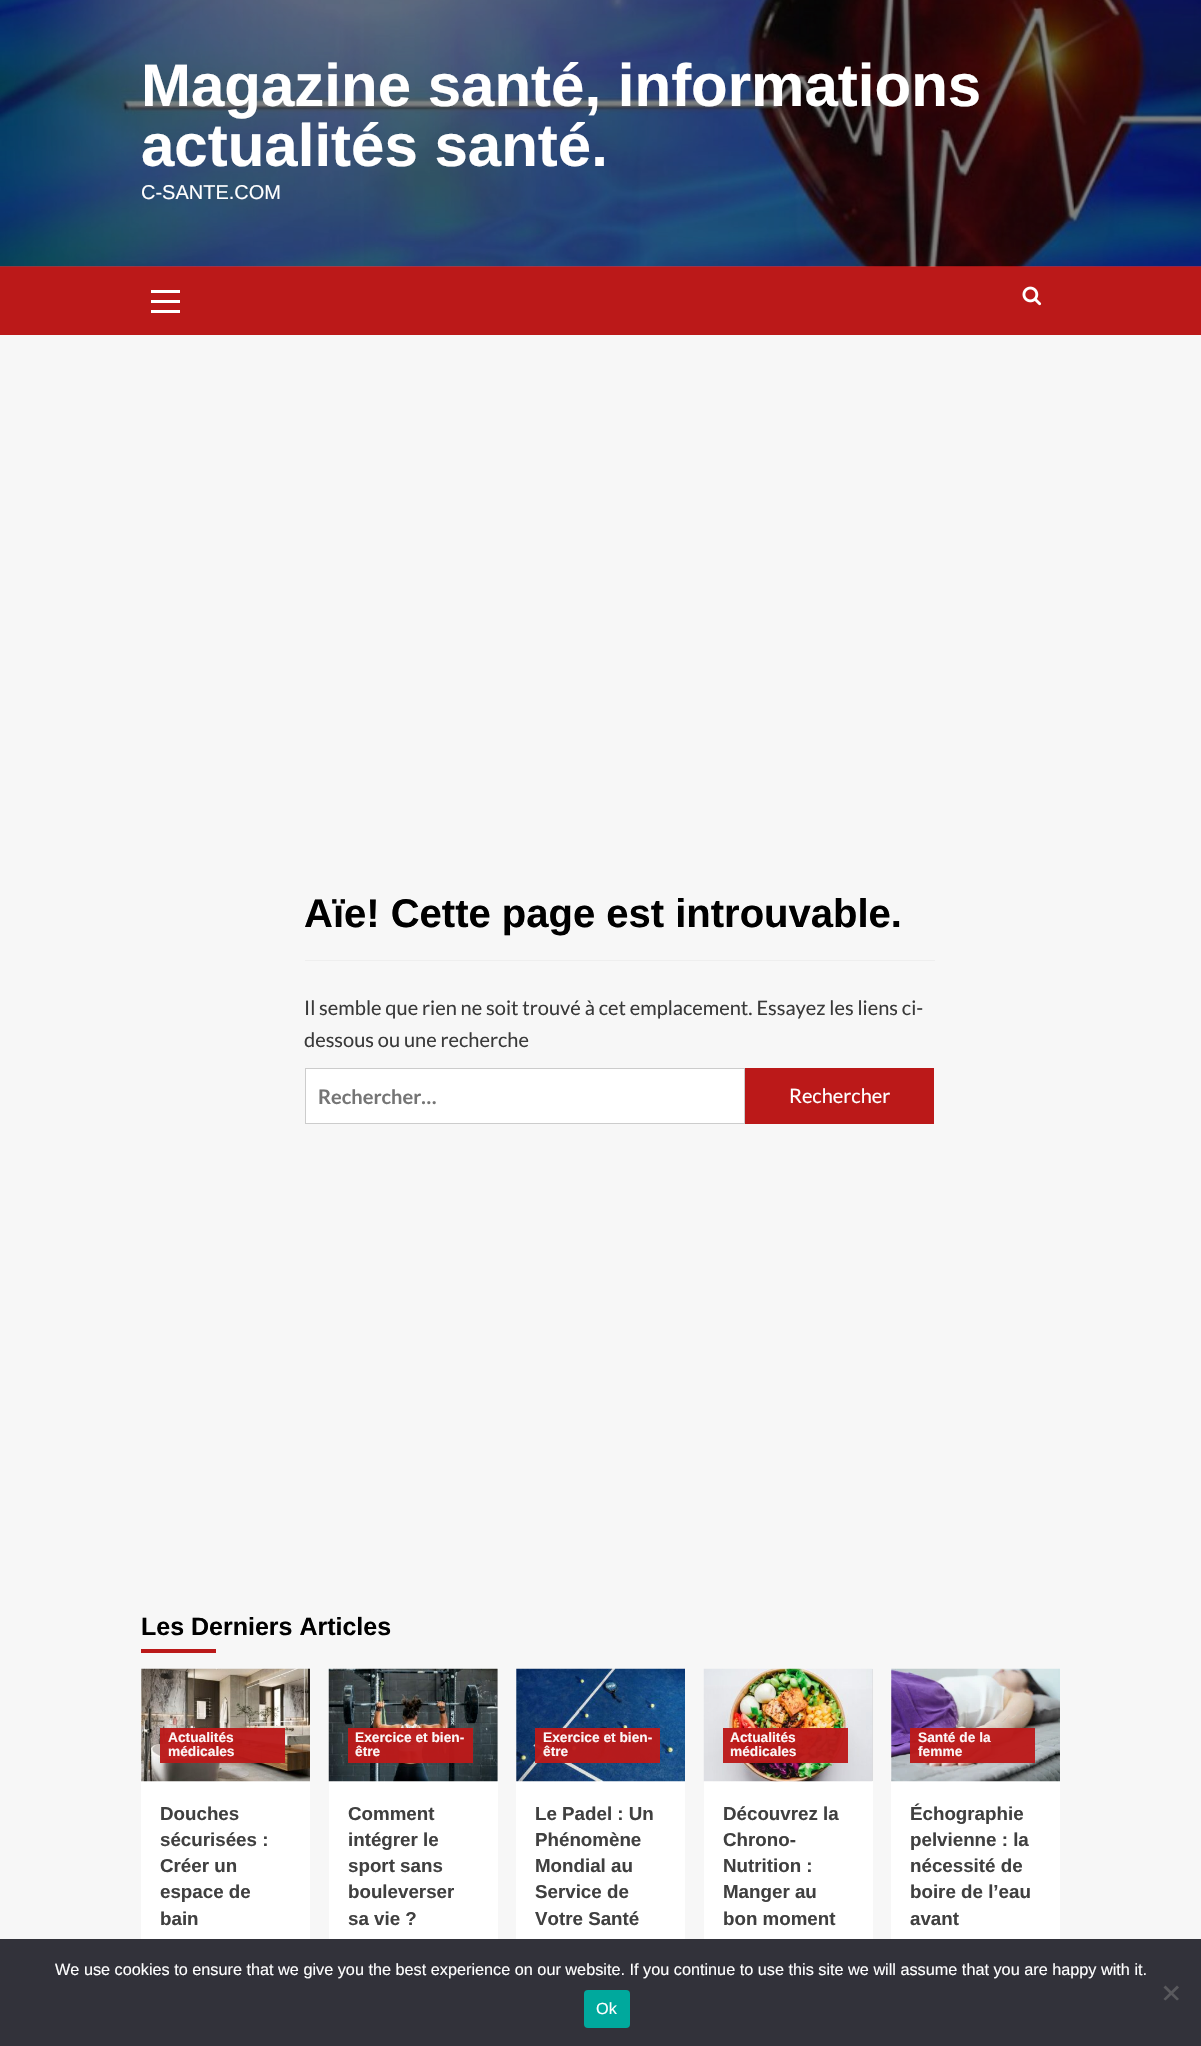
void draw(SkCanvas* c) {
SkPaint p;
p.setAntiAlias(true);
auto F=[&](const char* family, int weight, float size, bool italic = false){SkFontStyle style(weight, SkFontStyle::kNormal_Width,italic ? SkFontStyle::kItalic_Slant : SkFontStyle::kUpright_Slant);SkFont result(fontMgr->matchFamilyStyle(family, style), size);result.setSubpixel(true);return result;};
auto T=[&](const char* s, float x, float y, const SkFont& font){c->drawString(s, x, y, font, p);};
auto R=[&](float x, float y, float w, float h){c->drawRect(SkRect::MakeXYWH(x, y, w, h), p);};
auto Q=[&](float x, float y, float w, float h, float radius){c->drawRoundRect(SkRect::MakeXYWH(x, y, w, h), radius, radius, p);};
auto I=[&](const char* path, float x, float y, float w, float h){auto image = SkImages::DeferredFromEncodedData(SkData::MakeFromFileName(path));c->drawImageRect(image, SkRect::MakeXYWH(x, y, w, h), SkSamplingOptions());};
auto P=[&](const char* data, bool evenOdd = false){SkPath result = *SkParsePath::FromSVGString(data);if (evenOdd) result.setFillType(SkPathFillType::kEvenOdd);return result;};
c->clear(0xfff7f7f7);
p.setColor(0xffbb1919);
R(0,266,1201,69);
I("1.png",0,0,1201,267);
auto f1 = F("Liberation Sans",700,60);
p.setColor(0xffffffff);
T("Magazine santé, informations",141,106,f1);
T("actualités santé.",141,166,f1);
auto f2 = F("Liberation Sans",400,20);
T("C-SANTE.COM",141,199,f2);
R(151,300,29,3);
R(151,290,29,3);
R(151,310,29,3);
I("2.png",1022,286,20,20);
p.setColor(0xffeeeeee);
R(305,960,630,1);
auto f3 = F("Liberation Sans",700,40);
p.setColor(0xff000000);
T("Aïe! Cette page est introuvable.",304,927,f3);
auto f4 = F("Lato",400,20);
p.setColor(0xff3a3a3a);
T("Il semble que rien ne soit trouvé à cet emplacement. Essayez les liens ci-",304,1015,f4);
T("dessous ou une recherche",304,1047,f4);
p.setColor(0xffffffff);
c->drawRect(SkRect::MakeXYWH(305.5,1068.5,439,55),p);
p.setStroke(true);
p.setStrokeWidth(1);
p.setColor(0xffcccccc);
c->drawRect(SkRect::MakeXYWH(305.5,1068.5,439,55),p);
auto f5 = F("Lato",700,20);
p.setStroke(false);
p.setColor(0xff757575);
T("Rechercher…",318,1104,f5);
p.setColor(0xffbb1919);
R(745,1068,189,56);
p.setColor(0xffffffff);
T("Rechercher",789,1103,f4);
auto f6 = F("Liberation Sans",700,25);
p.setColor(0xff000000);
T("Les Derniers Articles",141,1635,f6);
p.setColor(0xffbb1919);
R(141,1649,75,4);
p.setColor(0xffffffff);
R(141,1669,169,270);
I("3.png",141,1668,169,114);
p.setColor(0xf5bb1919);
R(160,1728,125,35);
auto f7 = F("Liberation Sans",700,13.75);
p.setColor(0xfffcf6f6);
T("Actualités",168,1742,f7);
T("médicales",168,1756,f7);
auto f8 = F("Liberation Sans",700,18.75);
p.setColor(0xff404040);
T("Douches",160,1820,f8);
T("sécurisées :",160,1846,f8);
T("Créer un",160,1872,f8);
T("espace de",160,1898,f8);
T("bain",160,1925,f8);
p.setColor(0xffffffff);
R(329,1781,169,158);
p.setColor(0xffd8d8d8);
R(497,1669,1,112);
I("4.png",328,1668,170,114);
p.setColor(0xf5bb1919);
R(348,1728,125,35);
p.setColor(0xfffcf6f6);
T("Exercice et bien-",355,1742,f7);
T("être",355,1756,f7);
p.setColor(0xff404040);
T("Comment",348,1820,f8);
T("intégrer le",348,1846,f8);
T("sport sans",348,1872,f8);
T("bouleverser",348,1898,f8);
T("sa vie ?",348,1925,f8);
p.setColor(0xffffffff);
R(516,1669,169,270);
I("5.png",516,1668,169,114);
p.setColor(0xf5bb1919);
R(535,1728,125,35);
p.setColor(0xfffcf6f6);
T("Exercice et bien-",543,1742,f7);
T("être",543,1756,f7);
p.setColor(0xff404040);
T("Le Padel : Un",535,1820,f8);
T("Phénomène",535,1846,f8);
T("Mondial au",535,1872,f8);
T("Service de",535,1898,f8);
T("Votre Santé",535,1925,f8);
p.setColor(0xffffffff);
R(704,1781,169,158);
p.setColor(0xffd8d8d8);
R(872,1669,1,112);
I("6.png",703,1668,170,114);
p.setColor(0xf5bb1919);
R(723,1728,125,35);
p.setColor(0xfffcf6f6);
T("Actualités",730,1742,f7);
T("médicales",730,1756,f7);
p.setColor(0xff404040);
T("Découvrez la",723,1820,f8);
T("Chrono-",723,1846,f8);
T("Nutrition :",723,1872,f8);
T("Manger au",723,1898,f8);
T("bon moment",723,1925,f8);
p.setColor(0xffffffff);
R(891,1669,169,270);
I("7.png",891,1668,169,114);
p.setColor(0xf5bb1919);
R(910,1728,125,35);
p.setColor(0xfffcf6f6);
T("Santé de la",918,1742,f7);
T("femme",918,1756,f7);
p.setColor(0xff404040);
T("Échographie",910,1820,f8);
T("pelvienne : la",910,1846,f8);
T("nécessité de",910,1872,f8);
T("boire de l’eau",910,1898,f8);
T("avant",910,1925,f8);
p.setColor(0xff32323a);
R(0,1939,1201,107);
auto f9 = F("Liberation Sans",400,16.25);
p.setColor(0xffffffff);
T("We use cookies to ensure that we give you the best experience on our website. If you continue to use this site we will assume that you are happy with it.",55,1975,f9);
p.setColor(0xff59595d);
c->drawPath(P("M1177 1985.5l2 2l-13.5 13l-2-1.5z"),p);
c->drawPath(P("M1163.5 1987.5l2-2l13.5 13.5l-2 1.5z"),p);
p.setColor(0xff00a99d);
Q(584,1990,46,38,4);
p.setColor(0xffffffff);
T("Ok",596,2014,f9);
}
